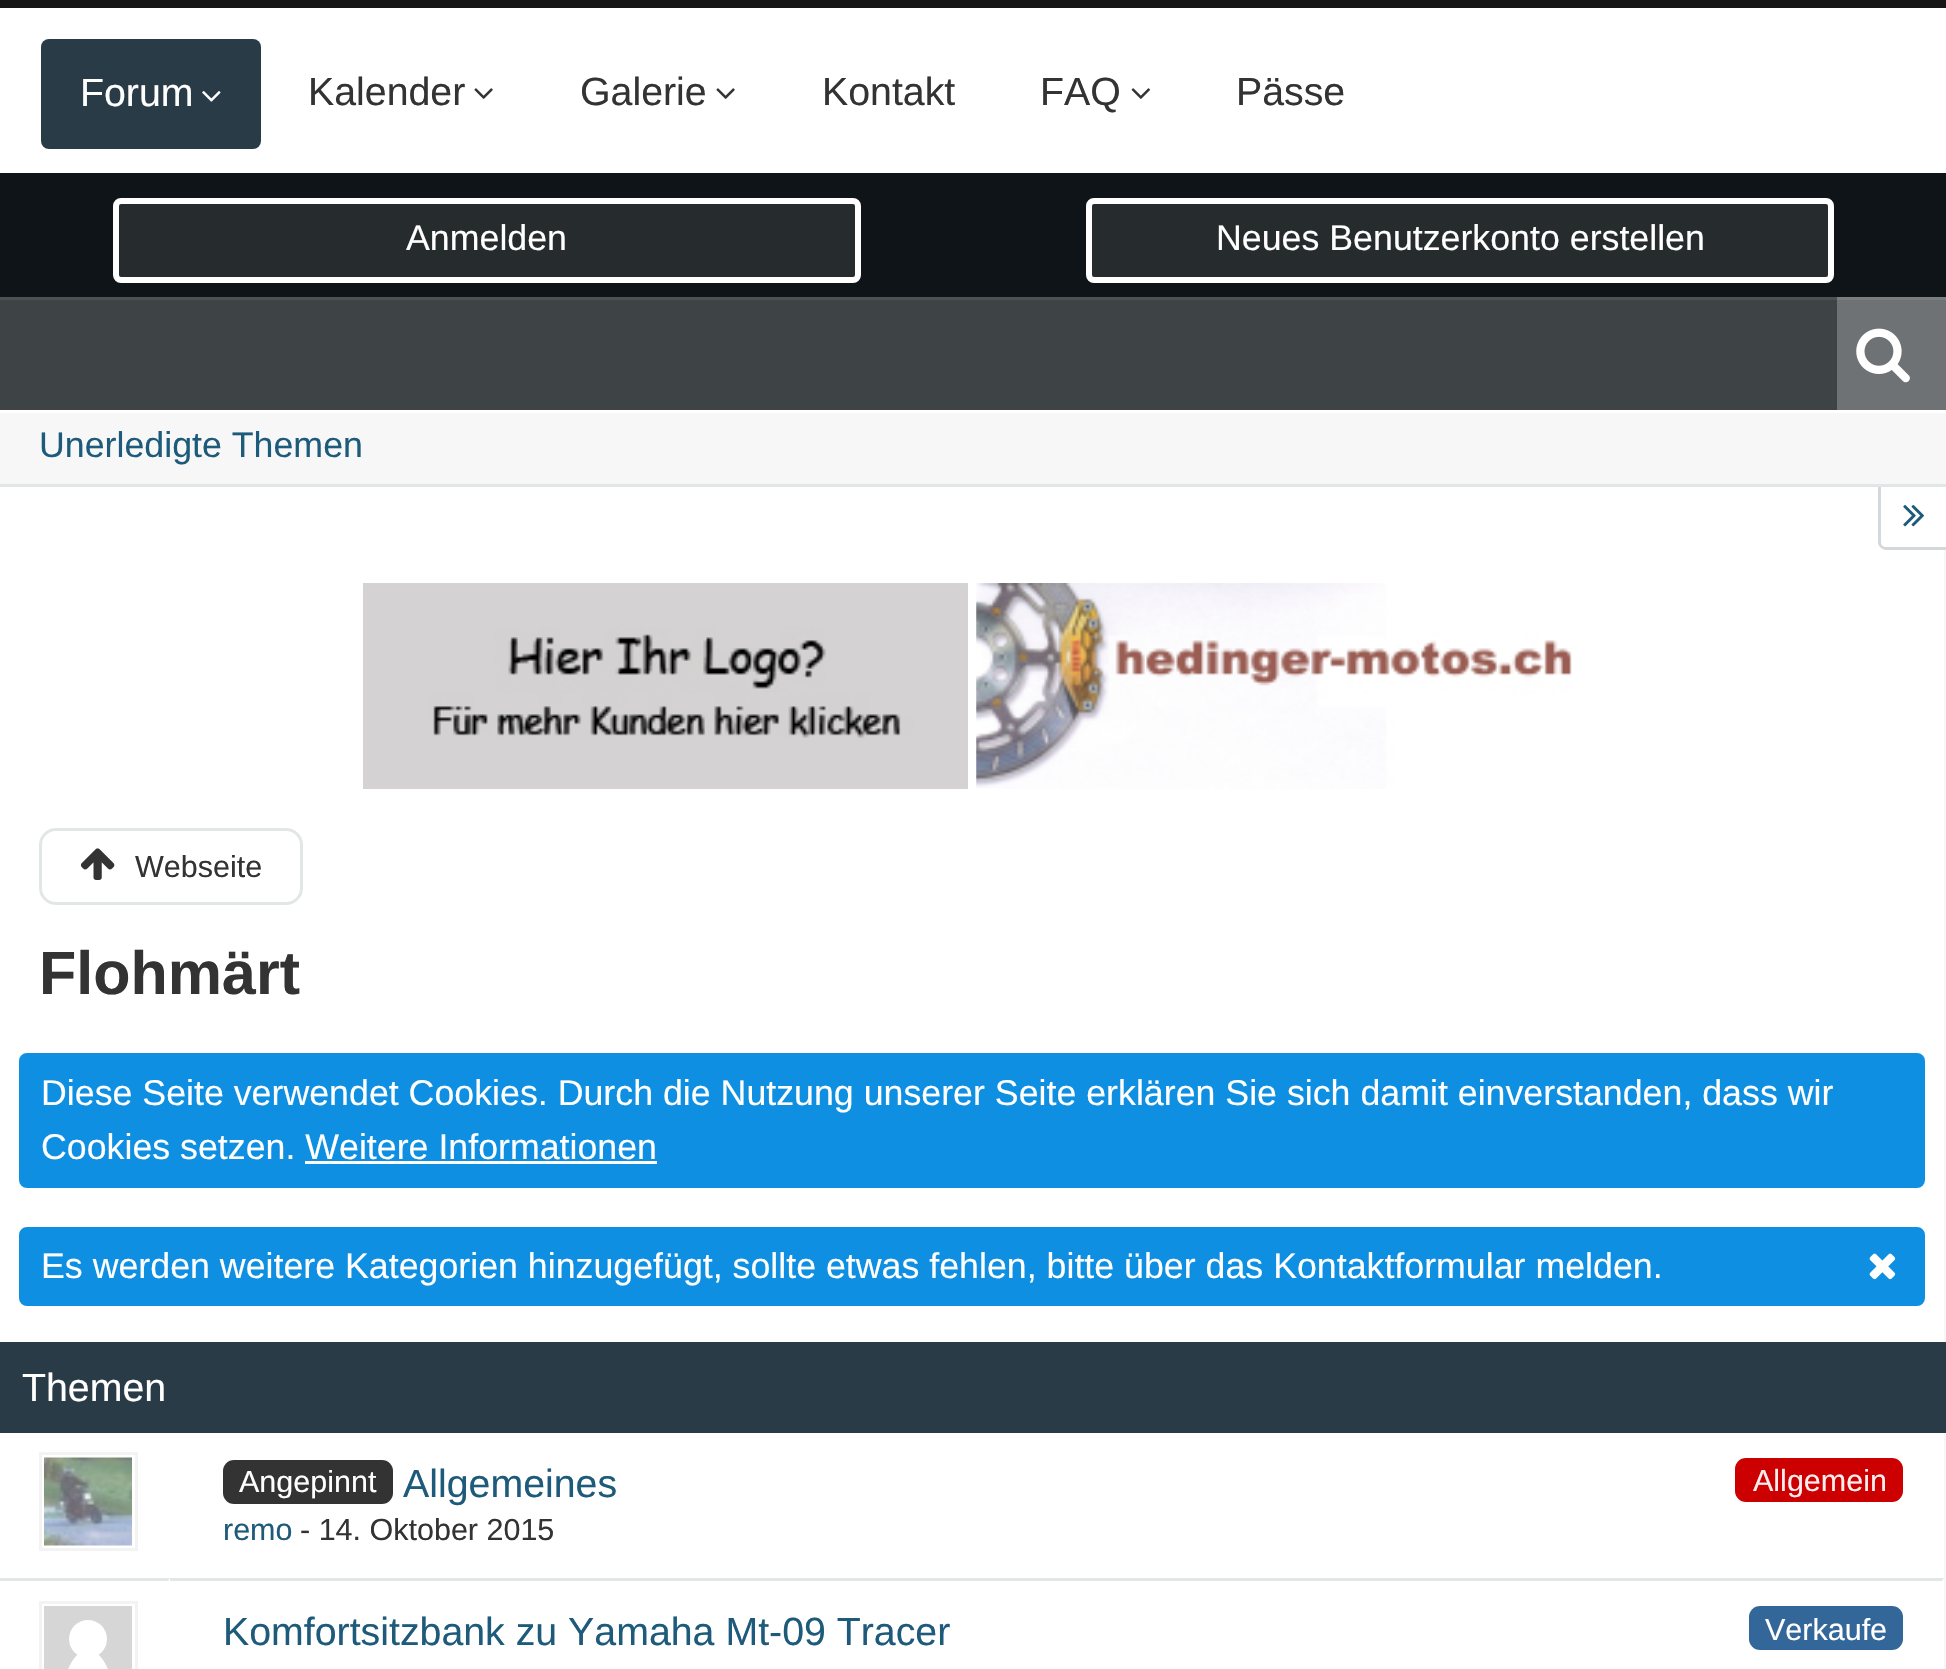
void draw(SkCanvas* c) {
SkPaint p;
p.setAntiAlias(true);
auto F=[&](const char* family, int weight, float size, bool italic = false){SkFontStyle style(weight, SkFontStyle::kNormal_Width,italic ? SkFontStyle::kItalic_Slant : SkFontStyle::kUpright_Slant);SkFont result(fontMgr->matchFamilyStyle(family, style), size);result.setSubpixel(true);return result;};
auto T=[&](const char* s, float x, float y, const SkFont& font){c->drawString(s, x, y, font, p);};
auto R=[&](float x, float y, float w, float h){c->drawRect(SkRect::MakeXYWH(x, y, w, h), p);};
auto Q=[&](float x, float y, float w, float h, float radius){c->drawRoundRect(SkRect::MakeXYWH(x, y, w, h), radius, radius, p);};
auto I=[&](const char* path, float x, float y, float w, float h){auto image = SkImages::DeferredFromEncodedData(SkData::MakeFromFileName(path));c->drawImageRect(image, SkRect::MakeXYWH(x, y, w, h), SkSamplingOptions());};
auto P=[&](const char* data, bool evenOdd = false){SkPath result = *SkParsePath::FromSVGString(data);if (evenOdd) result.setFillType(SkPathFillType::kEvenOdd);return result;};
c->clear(0xff161616);
p.setColor(0xff0e1417);
R(0,173,1946,124);
p.setColor(0xffffffff);
R(0,8,1946,165);
p.setColor(0xff283b46);
Q(41,39,220,110,8);
auto f1 = F("Liberation Sans",400,39.3);
p.setColor(0xffffffff);
T("Forum",80,106,f1);
I("1.png",202,91,19,11);
p.setColor(0xff333333);
T("Kalender",308,105,f1);
I("2.png",474,88,19,11);
T("Galerie",580,105,f1);
I("2.png",716,88,19,11);
T("Kontakt",822,105,f1);
T("FAQ",1040,105,f1);
I("3.png",1131,88,19,11);
T("Pässe",1236,105,f1);
p.setColor(0xff262c2e);
c->drawRoundRect(SkRect::MakeXYWH(116,201,742,79),5,5,p);
p.setStroke(true);
p.setStrokeWidth(6);
p.setColor(0xffffffff);
c->drawRoundRect(SkRect::MakeXYWH(116,201,742,79),5,5,p);
auto f2 = F("Liberation Sans",400,35.75);
p.setStroke(false);
T("Anmelden",406,250,f2);
p.setColor(0xff262c2e);
c->drawRoundRect(SkRect::MakeXYWH(1089,201,742,79),5,5,p);
p.setStroke(true);
p.setColor(0xffffffff);
c->drawRoundRect(SkRect::MakeXYWH(1089,201,742,79),5,5,p);
p.setStroke(false);
T("Neues Benutzerkonto erstellen",1216,250,f2);
p.setColor(0xff3e4345);
R(0,300,1837,110);
p.setColor(0xff6e7274);
R(1837,300,109,110);
p.setColor(0xff4c5153);
R(0,297,1837,3);
p.setColor(0xff797d7e);
R(1837,297,109,3);
I("4.png",1856,328,54,55);
p.setColor(0xfff7f7f8);
R(0,413,1946,71);
p.setColor(0xffffffff);
R(0,410,1946,3);
p.setColor(0xffe3e6e7);
R(0,484,1946,3);
p.setColor(0xff1e5b7b);
T("Unerledigte Themen",39,457,f2);
p.setColor(0xfff7f7f8);
R(1944,550,2,1119);
p.setColor(0xffffffff);
R(0,487,1944,1182);
c->drawPath(P("M1881 487h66v60h-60c-3.5 0-6-2.5-6-6z"),p);
p.setColor(0xffd4d8da);
c->drawPath(P("M1878 487h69v63h-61c-4 0-8-4-8-8zm3 0h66v60h-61c-3 0-5-2-5-5z",true),p);
I("5.png",1903,505,21,22);
I("6.png",363,583,605,206);
I("7.png",976,583,596,206);
p.setStroke(true);
p.setStrokeWidth(3);
p.setColor(0xffe3e6e7);
c->drawRoundRect(SkRect::MakeXYWH(40.5,829.5,261,74),15.5,15.5,p);
I("8.png",80,848,35,32);
auto f3 = F("Liberation Sans",400,30.5);
p.setStroke(false);
p.setColor(0xff333333);
T("Webseite",135,877,f3);
auto f4 = F("Liberation Sans",700,61);
T("Flohmärt",39,994,f4);
p.setColor(0xff0f8fe2);
c->drawRoundRect(SkRect::MakeXYWH(20.5,1054.5,1903,132),6.5,6.5,p);
p.setStroke(true);
c->drawRoundRect(SkRect::MakeXYWH(20.5,1054.5,1903,132),6.5,6.5,p);
p.setStroke(false);
p.setColor(0xffffffff);
T("Diese Seite verwendet Cookies. Durch die Nutzung unserer Seite erklären Sie sich damit einverstanden, dass wir",41,1105,f2);
T("Cookies setzen. Weitere Informationen",41,1159,f2);
R(305,1161,352,3);
p.setColor(0xff0f8fe2);
c->drawRoundRect(SkRect::MakeXYWH(20.5,1228.5,1903,76),6.5,6.5,p);
p.setStroke(true);
c->drawRoundRect(SkRect::MakeXYWH(20.5,1228.5,1903,76),6.5,6.5,p);
p.setStroke(false);
p.setColor(0xffffffff);
T("Es werden weitere Kategorien hinzugefügt, sollte etwas fehlen, bitte über das Kontaktformular melden.",41,1278,f2);
I("9.png",1869,1253,27,27);
p.setColor(0xff283b46);
R(0,1342,1946,91);
p.setColor(0xffffffff);
T("Themen",22,1401,f1);
p.setStroke(true);
p.setColor(0xfff3f3f3);
c->drawRect(SkRect::MakeXYWH(40.5,1453.5,96,96),p);
I("10.png",44,1457,88,89);
p.setStroke(false);
p.setColor(0xff333333);
Q(223,1460,170,44,11);
p.setColor(0xffffffff);
T("Angepinnt",239,1492,f3);
p.setColor(0xff1e5b7b);
T("Allgemeines",403,1497,f1);
p.setColor(0xffcc0000);
Q(1735,1458,168,44,11);
p.setColor(0xffffeeee);
T("Allgemein",1753,1491,f3);
p.setColor(0xff1e5b7b);
T("remo",223,1540,f3);
p.setColor(0xff333333);
T("- 14. Oktober 2015",300,1540,f3);
p.setColor(0xffe3e6e7);
c->drawPath(P("M0 1578h170l-2 3h-168z"),p);
p.setStroke(true);
p.setColor(0xfff3f3f3);
c->drawRect(SkRect::MakeXYWH(40.5,1602.5,96,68),p);
p.setStroke(false);
p.setColor(0xffd6d6d6);
R(44,1606,88,63);
p.setColor(0xffffffff);
c->drawPath(P("M63 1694c4-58 46-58 50 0"),p);
c->drawCircle(88,1639,19,p);
p.setColor(0xffe3e6e7);
c->drawPath(P("M170 1578h1774l-2 3h-1772z"),p);
p.setColor(0xff1e5b7b);
T("Komfortsitzbank zu Yamaha Mt-09 Tracer",223,1645,f1);
p.setColor(0xff336699);
Q(1749,1606,154,44,11);
p.setColor(0xffffffff);
T("Verkaufe",1765,1640,f3);
}
